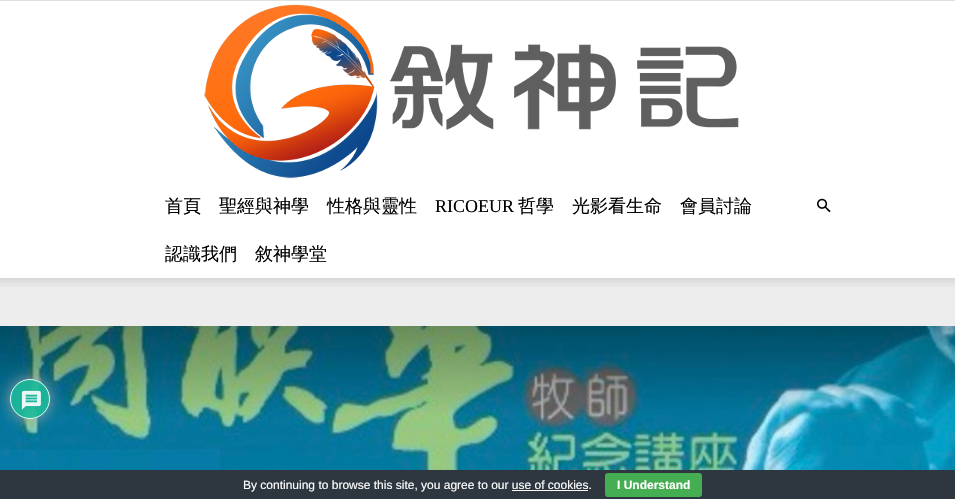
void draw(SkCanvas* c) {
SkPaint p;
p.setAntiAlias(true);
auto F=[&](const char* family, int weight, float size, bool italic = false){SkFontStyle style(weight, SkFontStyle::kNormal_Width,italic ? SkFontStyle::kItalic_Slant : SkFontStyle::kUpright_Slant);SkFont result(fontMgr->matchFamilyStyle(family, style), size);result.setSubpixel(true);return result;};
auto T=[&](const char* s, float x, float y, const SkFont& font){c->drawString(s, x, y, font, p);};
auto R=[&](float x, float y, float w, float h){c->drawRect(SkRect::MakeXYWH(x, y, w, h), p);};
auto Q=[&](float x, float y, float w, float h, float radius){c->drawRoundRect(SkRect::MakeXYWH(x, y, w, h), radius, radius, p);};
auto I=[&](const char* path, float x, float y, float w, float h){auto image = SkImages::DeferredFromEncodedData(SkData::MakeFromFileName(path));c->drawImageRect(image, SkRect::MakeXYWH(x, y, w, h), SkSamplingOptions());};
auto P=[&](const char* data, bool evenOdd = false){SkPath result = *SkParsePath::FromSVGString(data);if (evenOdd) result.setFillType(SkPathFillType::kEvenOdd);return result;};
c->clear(0xffededed);
p.setColor(0xffe0e0e0);
R(0,0,955,1);
p.setColor(0xffffffff);
R(0,1,955,277);
I("1.png",204,4,535,175);
auto f1 = F("WenQuanYi Zen Hei",500,18);
p.setColor(0xff000000);
T("首頁",165,212,f1);
T("聖經與神學",219,212,f1);
T("性格與靈性",327,212,f1);
auto f2 = F("Liberation Serif",400,18);
T("RICOEUR",435,212,f2);
T("哲學",518,212,f1);
T("光影看生命",572,212,f1);
T("會員討論",680,212,f1);
T("認識我們",165,260,f1);
T("敘神學堂",255,260,f1);
I("2.png",817,198,14,15);
I("3.png",0,278,955,9);
I("4.png",0,326,955,144);
c->save();
c->clipPath(P("M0 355h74v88h-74zm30 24c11 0 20 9 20 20c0 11-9 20-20 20c-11 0-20-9-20-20c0-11 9-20 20-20z",true),true);
p.setColor(0xe6aaaaaa);
p.setMaskFilter(SkMaskFilter::MakeBlur(kNormal_SkBlurStyle, 7.5));
c->drawRoundRect(SkRect::MakeXYWH(10,379,40,40),20,20,p);
p.setMaskFilter(nullptr);
c->restore();
p.setColor(0xe61db99a);
c->drawCircle(30,399,20,p);
p.setStroke(true);
p.setStrokeWidth(1);
p.setColor(0xe6ffffff);
c->drawCircle(30,399,19.5,p);
I("5.png",21,390,20,20);
p.setStroke(false);
p.setColor(0xff2e363f);
R(0,470,955,29);
auto f3 = F("Liberation Sans",400,12);
p.setColor(0xffffffff);
T("By continuing to browse this site, you agree to our use of cookies.",243,489,f3);
p.setColor(0xff45ae52);
Q(605,473,97,24,3);
auto f4 = F("Liberation Sans",700,12);
p.setColor(0xffffffff);
T("I Understand",617,489,f4);
R(512,490,76,1);
}
